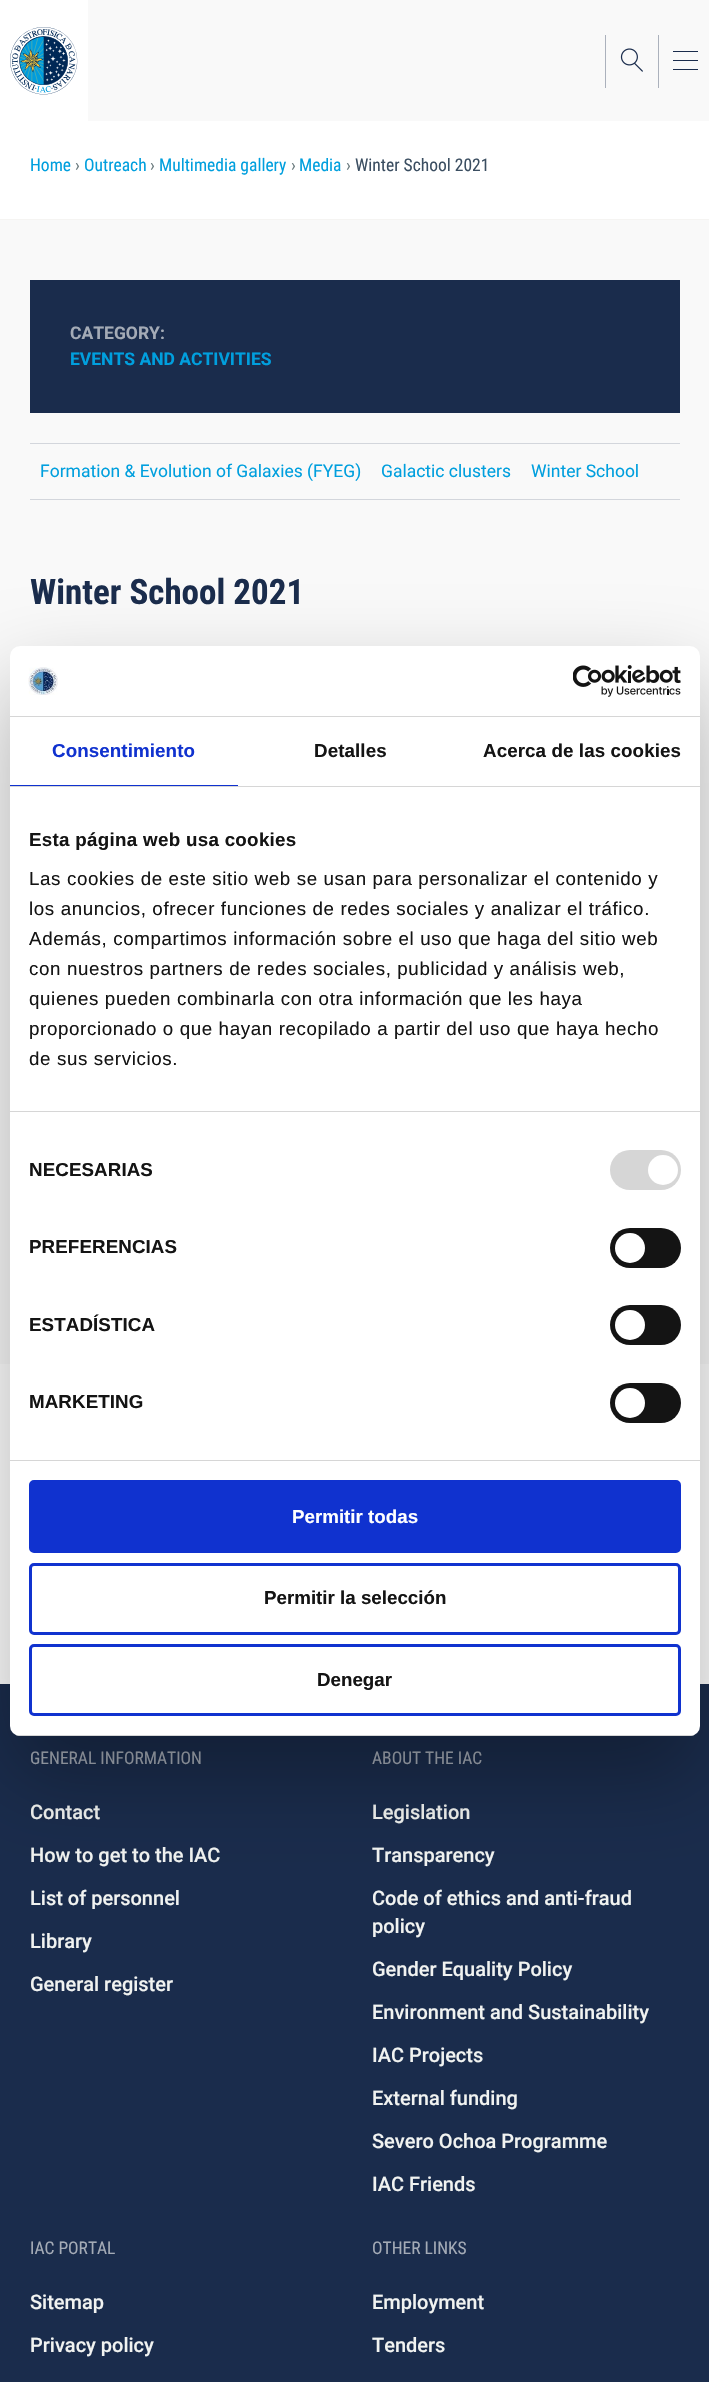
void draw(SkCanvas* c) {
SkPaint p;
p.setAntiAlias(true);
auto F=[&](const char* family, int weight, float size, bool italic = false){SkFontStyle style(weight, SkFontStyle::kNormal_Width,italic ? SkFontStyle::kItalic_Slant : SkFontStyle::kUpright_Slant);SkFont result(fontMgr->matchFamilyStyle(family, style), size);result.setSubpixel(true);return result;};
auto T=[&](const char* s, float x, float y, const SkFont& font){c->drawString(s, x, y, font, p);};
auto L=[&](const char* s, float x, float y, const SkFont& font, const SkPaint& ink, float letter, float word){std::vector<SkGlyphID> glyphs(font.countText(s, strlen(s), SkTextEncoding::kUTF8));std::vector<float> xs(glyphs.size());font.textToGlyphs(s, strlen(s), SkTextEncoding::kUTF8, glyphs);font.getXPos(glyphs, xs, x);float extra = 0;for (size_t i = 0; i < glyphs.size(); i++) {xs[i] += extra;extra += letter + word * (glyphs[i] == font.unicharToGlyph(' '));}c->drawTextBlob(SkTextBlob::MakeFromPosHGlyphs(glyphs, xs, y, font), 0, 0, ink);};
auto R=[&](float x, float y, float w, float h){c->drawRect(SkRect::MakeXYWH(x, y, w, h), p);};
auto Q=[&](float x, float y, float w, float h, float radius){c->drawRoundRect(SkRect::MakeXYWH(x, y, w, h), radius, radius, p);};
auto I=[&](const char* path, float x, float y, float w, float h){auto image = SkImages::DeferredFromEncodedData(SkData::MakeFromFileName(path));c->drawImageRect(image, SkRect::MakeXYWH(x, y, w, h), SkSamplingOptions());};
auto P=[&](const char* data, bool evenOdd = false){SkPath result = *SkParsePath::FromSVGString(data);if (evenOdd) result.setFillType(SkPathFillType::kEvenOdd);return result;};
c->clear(0xfff9f9f9);
p.setColor(0xffffffff);
R(0,0,88,121);
I("1.png",10,27,68,68);
I("2.png",620,48,23,24);
p.setColor(0xffabb1bc);
R(605,35,1,53);
R(658,35,1,53);
p.setColor(0xff1a2c4c);
R(673,60,25,1);
R(673,51,25,1);
R(673,69,25,1);
p.setColor(0xffffffff);
R(0,121,709,98);
p.setColor(0xfff5f4f2);
R(0,219,709,1);
auto f1 = F("Roboto Condensed",400,17.5);
p.setColor(0xff009fde);
T("Home",30,171,f1);
p.setColor(0xff6f7e82);
T("›",75,171,f1);
p.setColor(0xff009fde);
T("Outreach",84,171,f1);
p.setColor(0xff6f7e82);
T("›",150,171,f1);
p.setColor(0xff009fde);
T("Multimedia gallery",159,171,f1);
p.setColor(0xff6f7e82);
T("›",291,171,f1);
p.setColor(0xff009fde);
T("Media",299,171,f1);
p.setColor(0xff6f7e82);
T("›",346,171,f1);
p.setColor(0xff3b4e61);
T("Winter School 2021",355,171,f1);
p.setColor(0xff1a2c4c);
R(30,280,650,133);
auto f2 = F("Roboto",700,17.5);
p.setColor(0xffa4abb6);
T("CATEGORY:",70,339,f2);
p.setColor(0xff009fde);
T("EVENTS AND ACTIVITIES",70,365,f2);
p.setColor(0xffd3d6dc);
R(30,443,650,1);
R(30,499,650,1);
auto f3 = F("Roboto",400,17.5);
p.setColor(0xff009fde);
T("Formation & Evolution of Galaxies (FYEG)",40,477,f3);
T("Galactic clusters",381,477,f3);
T("Winter School",531,477,f3);
auto f4 = F("Roboto Condensed",700,35);
p.setColor(0xff1a2c4c);
T("Winter School 2021",30,604,f4);
p.setColor(0xffffffff);
R(0,1364,709,320);
p.setColor(0xff1a2c4c);
R(0,1684,709,698);
p.setColor(0xffa4abb6);
T("GENERAL INFORMATION",30,1764,f1);
auto f5 = F("Roboto",500,20);
p.setColor(0xfff1f3f1);
T("Contact",30,1819,f5);
T("How to get to the IAC",30,1862,f5);
T("List of personnel",30,1905,f5);
T("Library",30,1948,f5);
T("General register",30,1991,f5);
p.setColor(0xffa4abb6);
T("ABOUT THE IAC",372,1764,f1);
p.setColor(0xfff1f3f1);
T("Legislation",372,1819,f5);
T("Transparency",372,1862,f5);
T("Code of ethics and anti-fraud",372,1905,f5);
T("policy",372,1933,f5);
T("Gender Equality Policy",372,1976,f5);
T("Environment and Sustainability",372,2019,f5);
T("IAC Projects",372,2062,f5);
T("External funding",372,2105,f5);
T("Severo Ochoa Programme",372,2148,f5);
T("IAC Friends",372,2191,f5);
p.setColor(0xffa4abb6);
T("IAC PORTAL",30,2254,f1);
p.setColor(0xfff1f3f1);
T("Sitemap",30,2309,f5);
T("Privacy policy",30,2352,f5);
p.setColor(0xffa4abb6);
T("OTHER LINKS",372,2254,f1);
p.setColor(0xfff1f3f1);
T("Employment",372,2309,f5);
T("Tenders",372,2352,f5);
p.setColor(0x4d000000);
p.setMaskFilter(SkMaskFilter::MakeBlur(kNormal_SkBlurStyle, 42.5));
c->drawRoundRect(SkRect::MakeXYWH(10,686,690,1090),10,10,p);
p.setMaskFilter(nullptr);
p.setColor(0xffffffff);
Q(10,646,690,1090,10);
p.setColor(0xffd6d6d6);
R(10,716,690,1);
I("3.png",28,667,30,28);
I("4.png",573,665,108,32);
R(10,786,690,1);
p.setColor(0xff1032cf);
R(10,785,228,1);
auto f6 = F("Liberation Sans",700,18.75);
L("Consentimiento",52,757,f6,p,.1,0);
p.setColor(0xff141414);
L("Detalles",314,757,f6,p,.1,0);
L("Acerca de las cookies",483,757,f6,p,.1,0);
p.setColor(0xffd6d6d6);
R(10,1111,690,1);
p.setColor(0xff141414);
L("Esta página web usa cookies",29,846,f6,p,.3,0);
auto f7 = F("Liberation Sans",400,18.75);
L("Las cookies de este sitio web se usan para personalizar el contenido y",29,885,f7,p,.62,0);
L("los anuncios, ofrecer funciones de redes sociales y analizar el tráfico.",29,915,f7,p,.62,0);
L("Además, compartimos información sobre el uso que haga del sitio web",29,945,f7,p,.62,0);
L("con nuestros partners de redes sociales, publicidad y análisis web,",29,975,f7,p,.62,0);
L("quienes pueden combinarla con otra información que les haya",29,1005,f7,p,.62,0);
L("proporcionado o que hayan recopilado a partir del uso que haya hecho",29,1035,f7,p,.62,0);
L("de sus servicios.",29,1065,f7,p,.62,0);
p.setColor(0xffd6d6d6);
R(10,1460,690,1);
p.setColor(0xff141414);
L("NECESARIAS",29,1176,f6,p,.1,0);
p.setColor(0xffd6d6d6);
Q(610,1150,71,40,20);
p.setColor(0xffffffff);
c->drawCircle(663,1170,15,p);
p.setColor(0xff141414);
L("PREFERENCIAS",29,1253,f6,p,.1,0);
Q(610,1228,71,40,20);
p.setColor(0xffffffff);
c->drawCircle(630,1248,15,p);
p.setColor(0xff141414);
L("ESTADÍSTICA",29,1331,f6,p,.1,0);
Q(610,1305,71,40,20);
p.setColor(0xffffffff);
c->drawCircle(630,1325,15,p);
p.setColor(0xff141414);
L("MARKETING",29,1408,f6,p,.1,0);
Q(610,1383,71,40,20);
p.setColor(0xffffffff);
c->drawCircle(630,1403,15,p);
c->save();
c->clipPath(P("M20 646h670c5.5 0 10 4.5 10 10v1070c0 5.5-4.5 10-10 10h-670c-5.5 0-10-4.5-10-10v-1070c0-5.5 4.5-10 10-10z"),true);
p.setColor(0xffd6d6d6);
R(10,1735,690,1);
c->restore();
p.setColor(0xff1032cf);
c->drawRoundRect(SkRect::MakeXYWH(30.5,1481.5,649,70),3.5,3.5,p);
p.setStroke(true);
p.setStrokeWidth(3);
c->drawRoundRect(SkRect::MakeXYWH(30.5,1481.5,649,70),3.5,3.5,p);
p.setStroke(false);
p.setColor(0xffffffff);
T("Permitir todas",292,1523,f6);
p.setStroke(true);
p.setColor(0xff1032cf);
c->drawRoundRect(SkRect::MakeXYWH(30.5,1564.5,649,69),3.5,3.5,p);
p.setStroke(false);
p.setColor(0xff141414);
T("Permitir la selección",264,1604,f6);
p.setStroke(true);
p.setColor(0xff1032cf);
c->drawRoundRect(SkRect::MakeXYWH(30.5,1645.5,649,69),3.5,3.5,p);
p.setStroke(false);
p.setColor(0xff141414);
T("Denegar",317,1686,f6);
}
